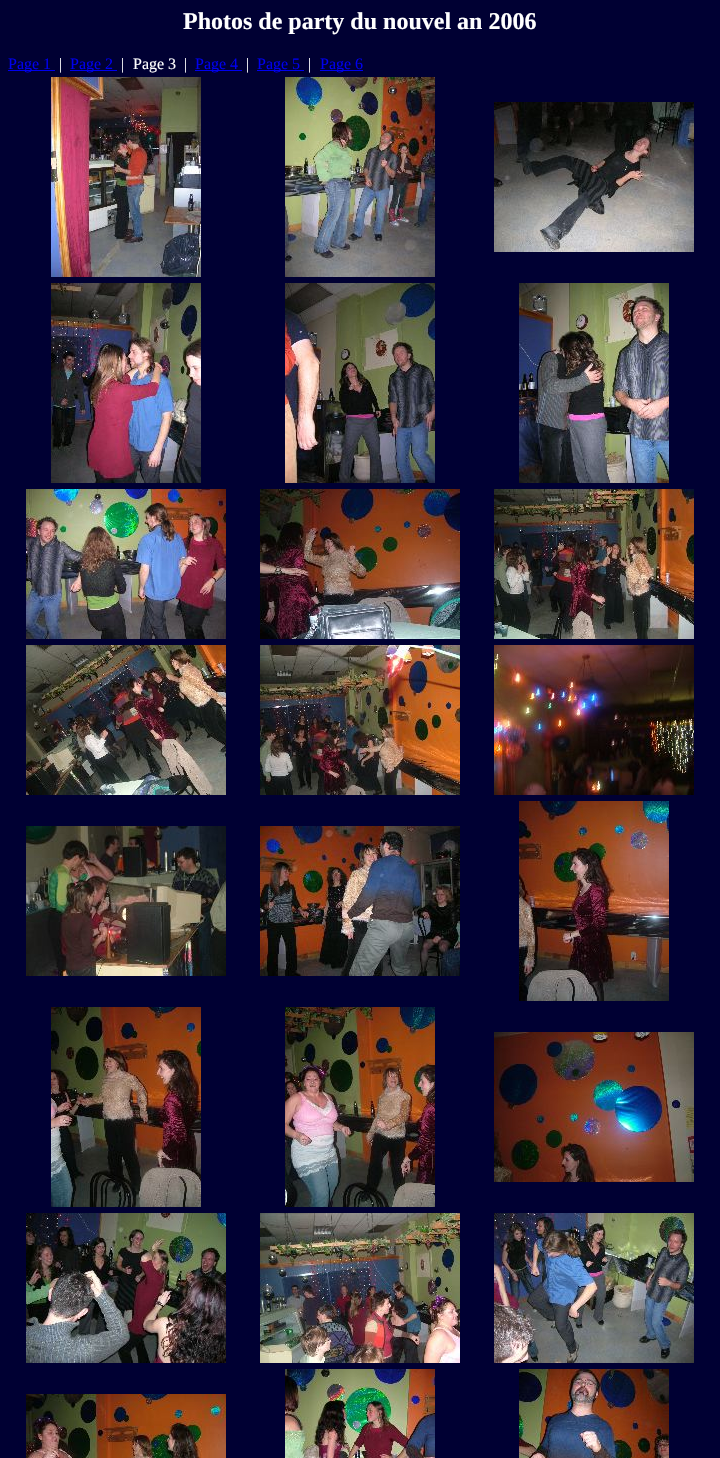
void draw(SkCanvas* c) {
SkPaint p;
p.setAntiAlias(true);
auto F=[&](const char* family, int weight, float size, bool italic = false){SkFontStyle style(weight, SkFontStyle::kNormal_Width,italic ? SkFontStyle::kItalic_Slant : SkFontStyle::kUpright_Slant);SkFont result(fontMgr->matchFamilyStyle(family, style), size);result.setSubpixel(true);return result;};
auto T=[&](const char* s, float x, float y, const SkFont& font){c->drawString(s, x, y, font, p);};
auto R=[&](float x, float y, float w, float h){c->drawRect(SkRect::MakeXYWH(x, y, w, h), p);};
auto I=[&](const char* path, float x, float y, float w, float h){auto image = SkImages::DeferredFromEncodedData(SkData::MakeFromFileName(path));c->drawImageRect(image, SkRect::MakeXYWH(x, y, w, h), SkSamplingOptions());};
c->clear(0xff000033);
auto f1 = F("Liberation Serif",700,24);
p.setColor(0xffffffff);
T("Photos de party du nouvel an 2006",183,29,f1);
p.setColor(0xff0000ee);
R(8,70,47,1);
auto f2 = F("Liberation Serif",400,16);
T("Page 1",8,69,f2);
p.setColor(0xffffffff);
T("|",59,69,f2);
p.setColor(0xff0000ee);
R(70,70,47,1);
T("Page 2",70,69,f2);
p.setColor(0xffffffff);
T("|",121,69,f2);
T("Page 3",133,69,f2);
T("|",184,69,f2);
p.setColor(0xff0000ee);
R(195,70,47,1);
T("Page 4",195,69,f2);
p.setColor(0xffffffff);
T("|",246,69,f2);
p.setColor(0xff0000ee);
R(257,70,47,1);
T("Page 5",257,69,f2);
p.setColor(0xffffffff);
T("|",308,69,f2);
p.setColor(0xff0000ee);
R(320,70,43,1);
T("Page 6",320,69,f2);
I("1.png",51,77,150,200);
I("2.png",285,77,150,200);
I("3.png",494,102,200,150);
I("4.png",51,283,150,200);
I("5.png",285,283,150,200);
I("6.png",519,283,150,200);
I("7.png",26,489,200,150);
I("8.png",260,489,200,150);
I("9.png",494,489,200,150);
I("10.png",26,645,200,150);
I("11.png",260,645,200,150);
I("12.png",494,645,200,150);
I("13.png",26,826,200,150);
I("14.png",260,826,200,150);
I("15.png",519,801,150,200);
I("16.png",51,1007,150,200);
I("17.png",285,1007,150,200);
I("18.png",494,1032,200,150);
I("19.png",26,1213,200,150);
I("20.png",260,1213,200,150);
I("21.png",494,1213,200,150);
I("22.png",26,1394,200,64);
I("23.png",285,1369,150,89);
I("24.png",519,1369,150,89);
}
